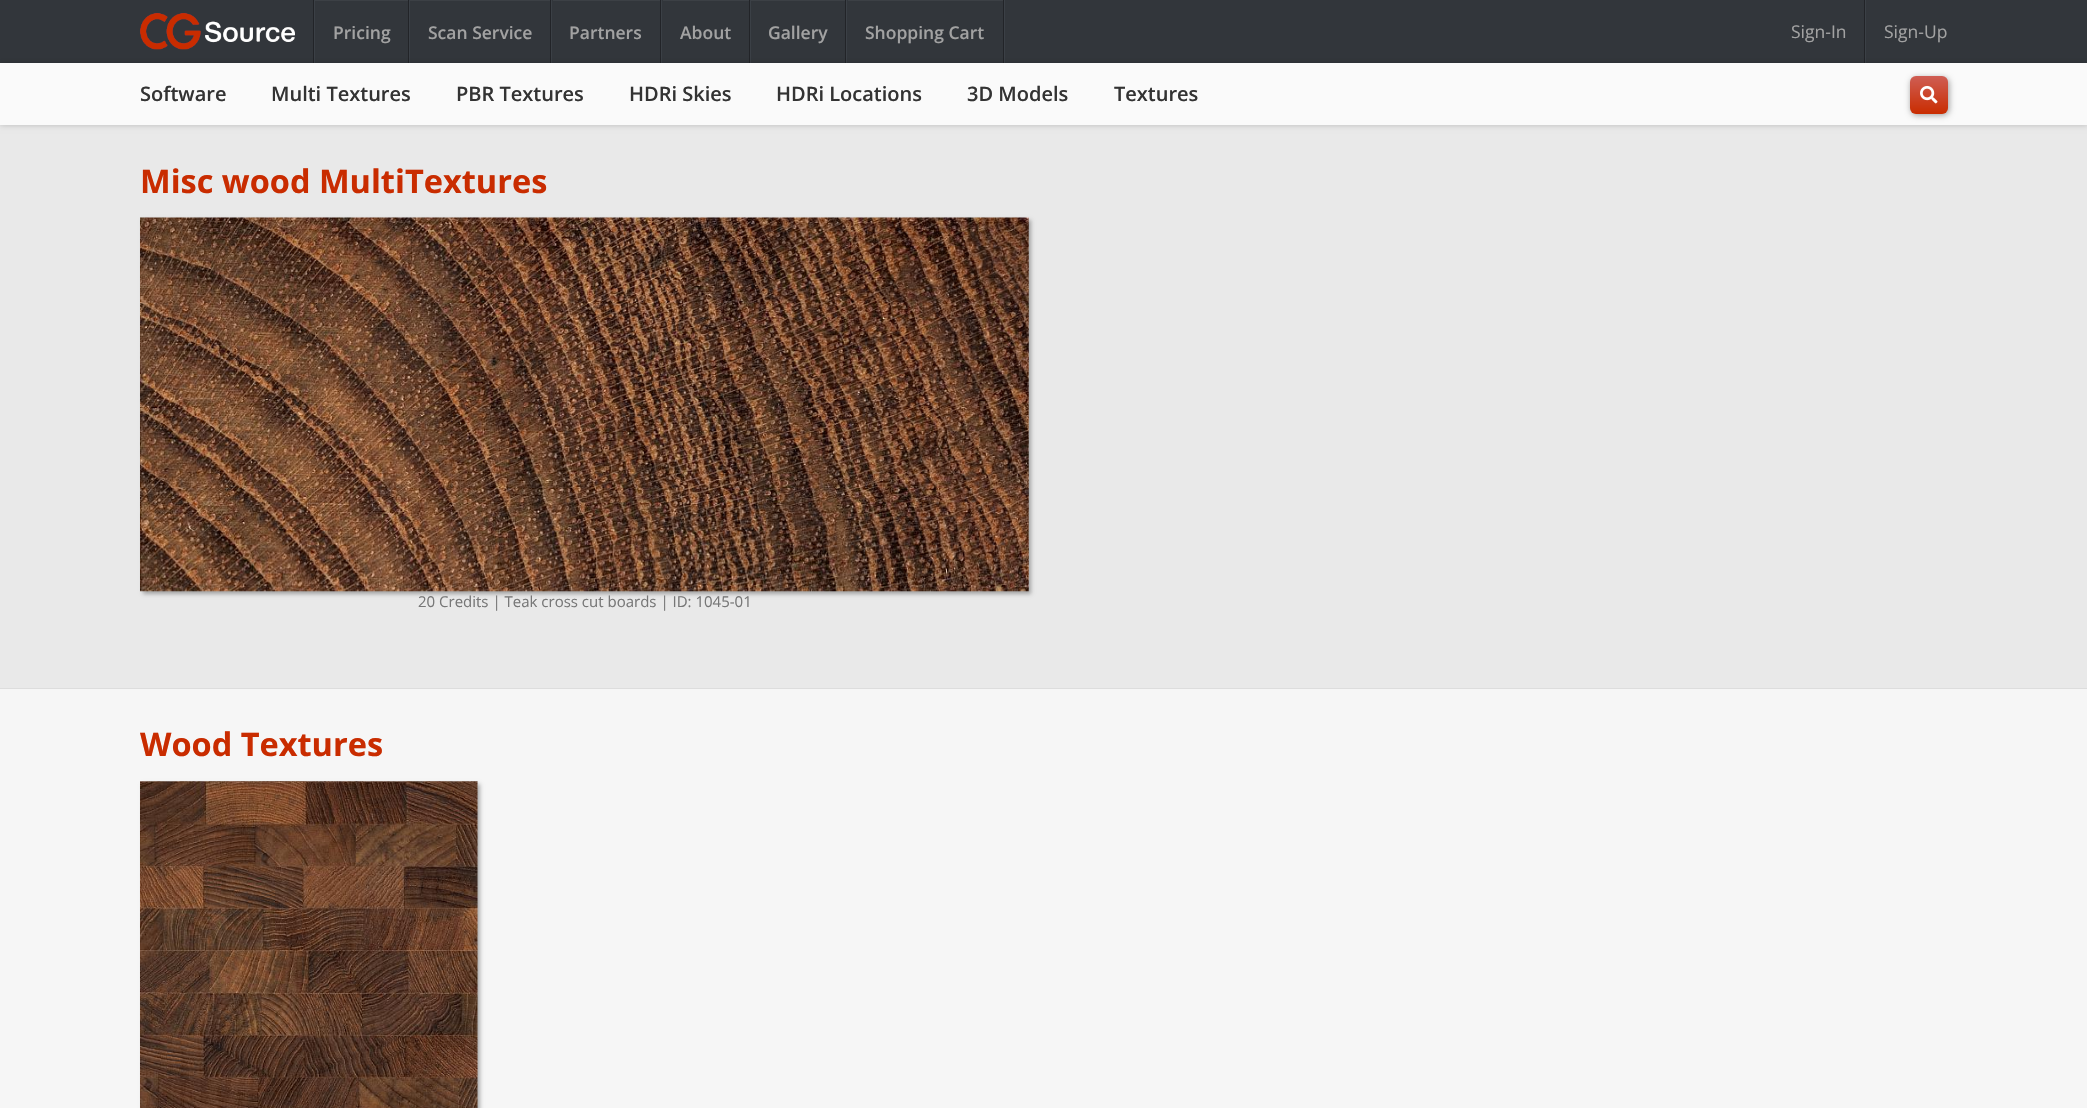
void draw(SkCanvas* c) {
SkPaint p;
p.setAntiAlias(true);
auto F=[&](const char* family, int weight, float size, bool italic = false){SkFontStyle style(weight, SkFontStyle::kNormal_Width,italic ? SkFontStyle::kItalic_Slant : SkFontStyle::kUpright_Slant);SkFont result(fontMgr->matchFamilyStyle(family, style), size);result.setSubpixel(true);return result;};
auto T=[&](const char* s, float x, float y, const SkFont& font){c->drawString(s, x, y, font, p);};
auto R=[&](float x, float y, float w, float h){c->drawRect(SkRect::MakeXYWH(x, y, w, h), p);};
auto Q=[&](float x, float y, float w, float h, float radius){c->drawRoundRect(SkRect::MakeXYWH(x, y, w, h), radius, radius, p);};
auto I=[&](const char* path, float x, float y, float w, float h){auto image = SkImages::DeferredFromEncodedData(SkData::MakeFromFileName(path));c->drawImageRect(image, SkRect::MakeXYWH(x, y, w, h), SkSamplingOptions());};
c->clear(0xfff6f6f6);
p.setColor(0xff32363b);
R(0,0,2087,63);
I("1.png",140,13,155,37);
p.setColor(0xff3b4046);
R(314,0,1,63);
p.setColor(0xff222428);
R(313,0,1,63);
p.setColor(0xff3c4045);
R(315,0,93,1);
auto f1 = F("Open Sans",600,17.5);
p.setColor(0xffa2a2a2);
T("Pricing",333,39,f1);
p.setColor(0xff3b4046);
R(409,0,1,63);
p.setColor(0xff222428);
R(408,0,1,63);
p.setColor(0xff3c4045);
R(410,0,140,1);
p.setColor(0xffa2a2a2);
T("Scan Service",428,39,f1);
p.setColor(0xff3b4046);
R(551,0,1,63);
p.setColor(0xff222428);
R(550,0,1,63);
p.setColor(0xff3c4045);
R(553,0,107,1);
p.setColor(0xffa2a2a2);
T("Partners",569,39,f1);
p.setColor(0xff3b4046);
R(661,0,1,63);
p.setColor(0xff222428);
R(660,0,1,63);
p.setColor(0xff3c4045);
R(663,0,86,1);
p.setColor(0xffa2a2a2);
T("About",680,39,f1);
p.setColor(0xff3b4046);
R(750,0,1,63);
p.setColor(0xff222428);
R(749,0,1,63);
p.setColor(0xff3c4045);
R(751,0,94,1);
p.setColor(0xffa2a2a2);
T("Gallery",768,39,f1);
p.setColor(0xff3b4046);
R(846,0,1,63);
p.setColor(0xff222428);
R(845,0,1,63);
p.setColor(0xff3c4045);
R(848,0,155,1);
p.setColor(0xffa2a2a2);
T("Shopping Cart",865,39,f1);
p.setColor(0xff3b4046);
R(1004,0,1,63);
p.setColor(0xff222428);
R(1003,0,1,63);
auto f2 = F("Open Sans",400,17.5);
p.setColor(0xffa2a2a2);
T("Sign-In",1791,38,f2);
p.setColor(0xff3b4046);
R(1865,0,1,63);
p.setColor(0xff222428);
R(1864,0,1,63);
p.setColor(0xffa2a2a2);
T("Sign-Up",1884,38,f2);
p.setColor(0xffe9e9e9);
R(0,125,2087,563);
p.setColor(0x33000000);
p.setMaskFilter(SkMaskFilter::MakeBlur(kNormal_SkBlurStyle, 3));
c->drawRect(SkRect::MakeXYWH(0,63,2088,62),p);
p.setMaskFilter(nullptr);
p.setColor(0xfffafafa);
R(0,63,2087,62);
auto f3 = F("Open Sans",600,20);
p.setColor(0xff333333);
T("Software",140,101,f3);
T("Multi Textures",271,101,f3);
T("PBR Textures",456,101,f3);
T("HDRi Skies",629,101,f3);
T("HDRi Locations",776,101,f3);
T("3D Models",967,101,f3);
T("Textures",1114,101,f3);
p.setColor(0x66000000);
p.setMaskFilter(SkMaskFilter::MakeBlur(kNormal_SkBlurStyle, 3));
c->drawRoundRect(SkRect::MakeXYWH(1911,78,38,37),6,6,p);
p.setMaskFilter(nullptr);
{
const SkColor colors[] = {0xffcf5e54,0xffc92c00};
const float stops[] = {0,1};
const SkPoint ends[] = {{1929,76}, {1929,114}};
p.setShader(SkGradientShader::MakeLinear(ends, colors, stops, 2, SkTileMode::kClamp));
p.setAlpha(255);
}
Q(1910,76,38,38,6);
I("2.png",1920,85,18,19);
p.setShader(nullptr);
p.setColor(0xffdddddd);
R(0,688,2087,1);
auto f4 = F("Open Sans",700,32.5);
p.setColor(0xffc92c00);
T("Misc wood MultiTextures",140,193,f4);
p.setColor(0x4d000000);
p.setMaskFilter(SkMaskFilter::MakeBlur(kNormal_SkBlurStyle, 2));
c->drawRect(SkRect::MakeXYWH(143,220,888,374),p);
p.setMaskFilter(nullptr);
I("3.png",140,217,889,375);
auto f5 = F("Open Sans",400,15);
p.setColor(0xff777777);
T("20 Credits | Teak cross cut boards | ID: 1045-01",418,607,f5);
p.setColor(0xffc92c00);
T("Wood Textures",140,756,f4);
p.setColor(0x4d000000);
p.setMaskFilter(SkMaskFilter::MakeBlur(kNormal_SkBlurStyle, 2));
c->drawRect(SkRect::MakeXYWH(143,784,337,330),p);
p.setMaskFilter(nullptr);
I("4.png",140,781,338,327);
}
